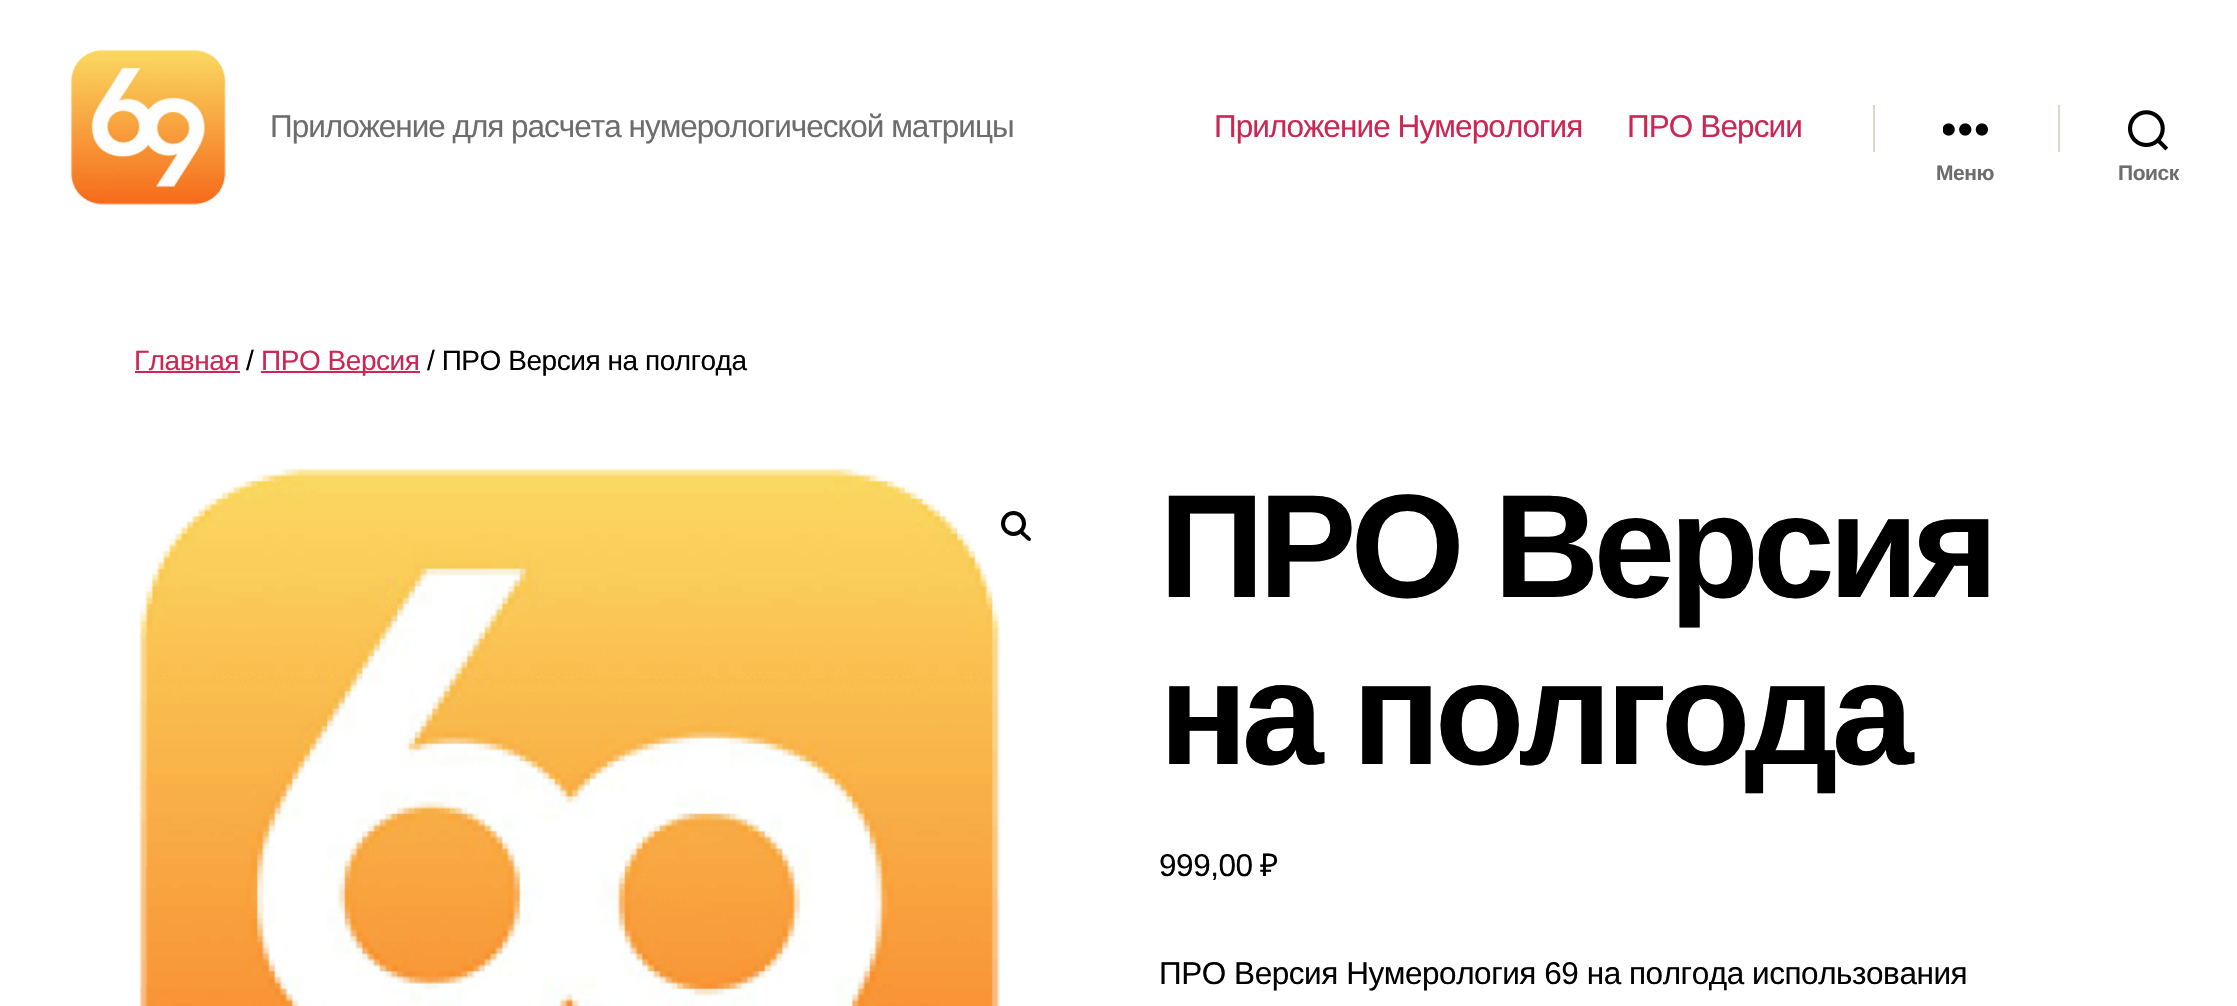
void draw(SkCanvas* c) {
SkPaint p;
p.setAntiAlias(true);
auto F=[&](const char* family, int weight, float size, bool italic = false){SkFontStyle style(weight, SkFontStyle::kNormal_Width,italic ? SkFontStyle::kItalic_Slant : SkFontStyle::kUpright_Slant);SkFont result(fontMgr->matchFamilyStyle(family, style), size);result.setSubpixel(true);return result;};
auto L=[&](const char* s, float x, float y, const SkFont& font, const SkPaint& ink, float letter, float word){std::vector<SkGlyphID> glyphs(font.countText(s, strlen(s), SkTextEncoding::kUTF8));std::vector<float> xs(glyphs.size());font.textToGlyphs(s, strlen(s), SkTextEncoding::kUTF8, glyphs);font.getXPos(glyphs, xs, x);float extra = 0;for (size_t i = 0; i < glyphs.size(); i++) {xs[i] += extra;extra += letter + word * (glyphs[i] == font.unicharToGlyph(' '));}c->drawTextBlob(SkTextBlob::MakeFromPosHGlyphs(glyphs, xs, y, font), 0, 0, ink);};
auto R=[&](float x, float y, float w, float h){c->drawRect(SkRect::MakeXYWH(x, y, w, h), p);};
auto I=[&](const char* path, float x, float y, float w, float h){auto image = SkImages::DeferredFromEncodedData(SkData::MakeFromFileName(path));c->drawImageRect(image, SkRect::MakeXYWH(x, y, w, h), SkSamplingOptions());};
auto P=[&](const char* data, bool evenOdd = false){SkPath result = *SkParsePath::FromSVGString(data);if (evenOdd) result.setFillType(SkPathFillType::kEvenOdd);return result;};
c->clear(0xffffffff);
I("1.png",70,49,156,156);
auto f1 = F("Liberation Sans",400,31.5);
p.setColor(0xff6d6d6d);
L("Приложение для расчета нумерологической матрицы",270,137,f1,p,-1,0);
p.setColor(0xffcd2653);
L("Приложение Нумерология",1214,137,f1,p,-.9,0);
L("ПРО Версии",1627,137,f1,p,-.9,0);
p.setColor(0xffdcd7ca);
R(1873,105,2,47);
I("2.png",1943,123,45,13);
auto f2 = F("Liberation Sans",700,21);
p.setColor(0xff6d6d6d);
L("Меню",1936,180,f2,p,-.45,0);
p.setColor(0xffdcd7ca);
R(2058,105,2,47);
I("3.png",2128,110,40,41);
p.setColor(0xff6d6d6d);
L("Поиск",2118,180,f2,p,-.45,0);
auto f3 = F("Liberation Sans",400,28);
p.setColor(0xffcd2653);
L("Главная",134,370,f3,p,-.45,0);
R(135,371,105,2);
p.setColor(0xff000000);
L("/",246,370,f3,p,-.45,0);
p.setColor(0xffcd2653);
R(261,371,159,2);
L("ПРО Версия",261,370,f3,p,-.45,0);
p.setColor(0xff000000);
L("/ ПРО Версия на полгода",427,370,f3,p,-.45,0);
I("4.png",139,468,861,538);
p.setStroke(true);
p.setStrokeWidth(4);
c->drawCircle(1013.5,523.5,10.5,p);
p.setStroke(false);
c->drawPath(P("M1020.5 531c2-2 5 2.5 6 3.5c1.5 1 6 4 4 6c-2 2-5-2.5-6.5-3.5c-1-1-5.5-4-3.5-6z"),p);
auto f4 = F("Liberation Sans",700,147);
L("ПРО Версия",1159,597,f4,p,-6.1,0);
L("на полгода",1159,764,f4,p,-6.1,0);
L("999,00",1159,876,f1,p,-.45,0);
auto f5 = F("Noto Sans",400,31.5);
L("₽",1260,876,f5,p,-.45,0);
L("ПРО Версия Нумерология 69 на полгода использования",1159,984,f1,p,-.45,0);
}
